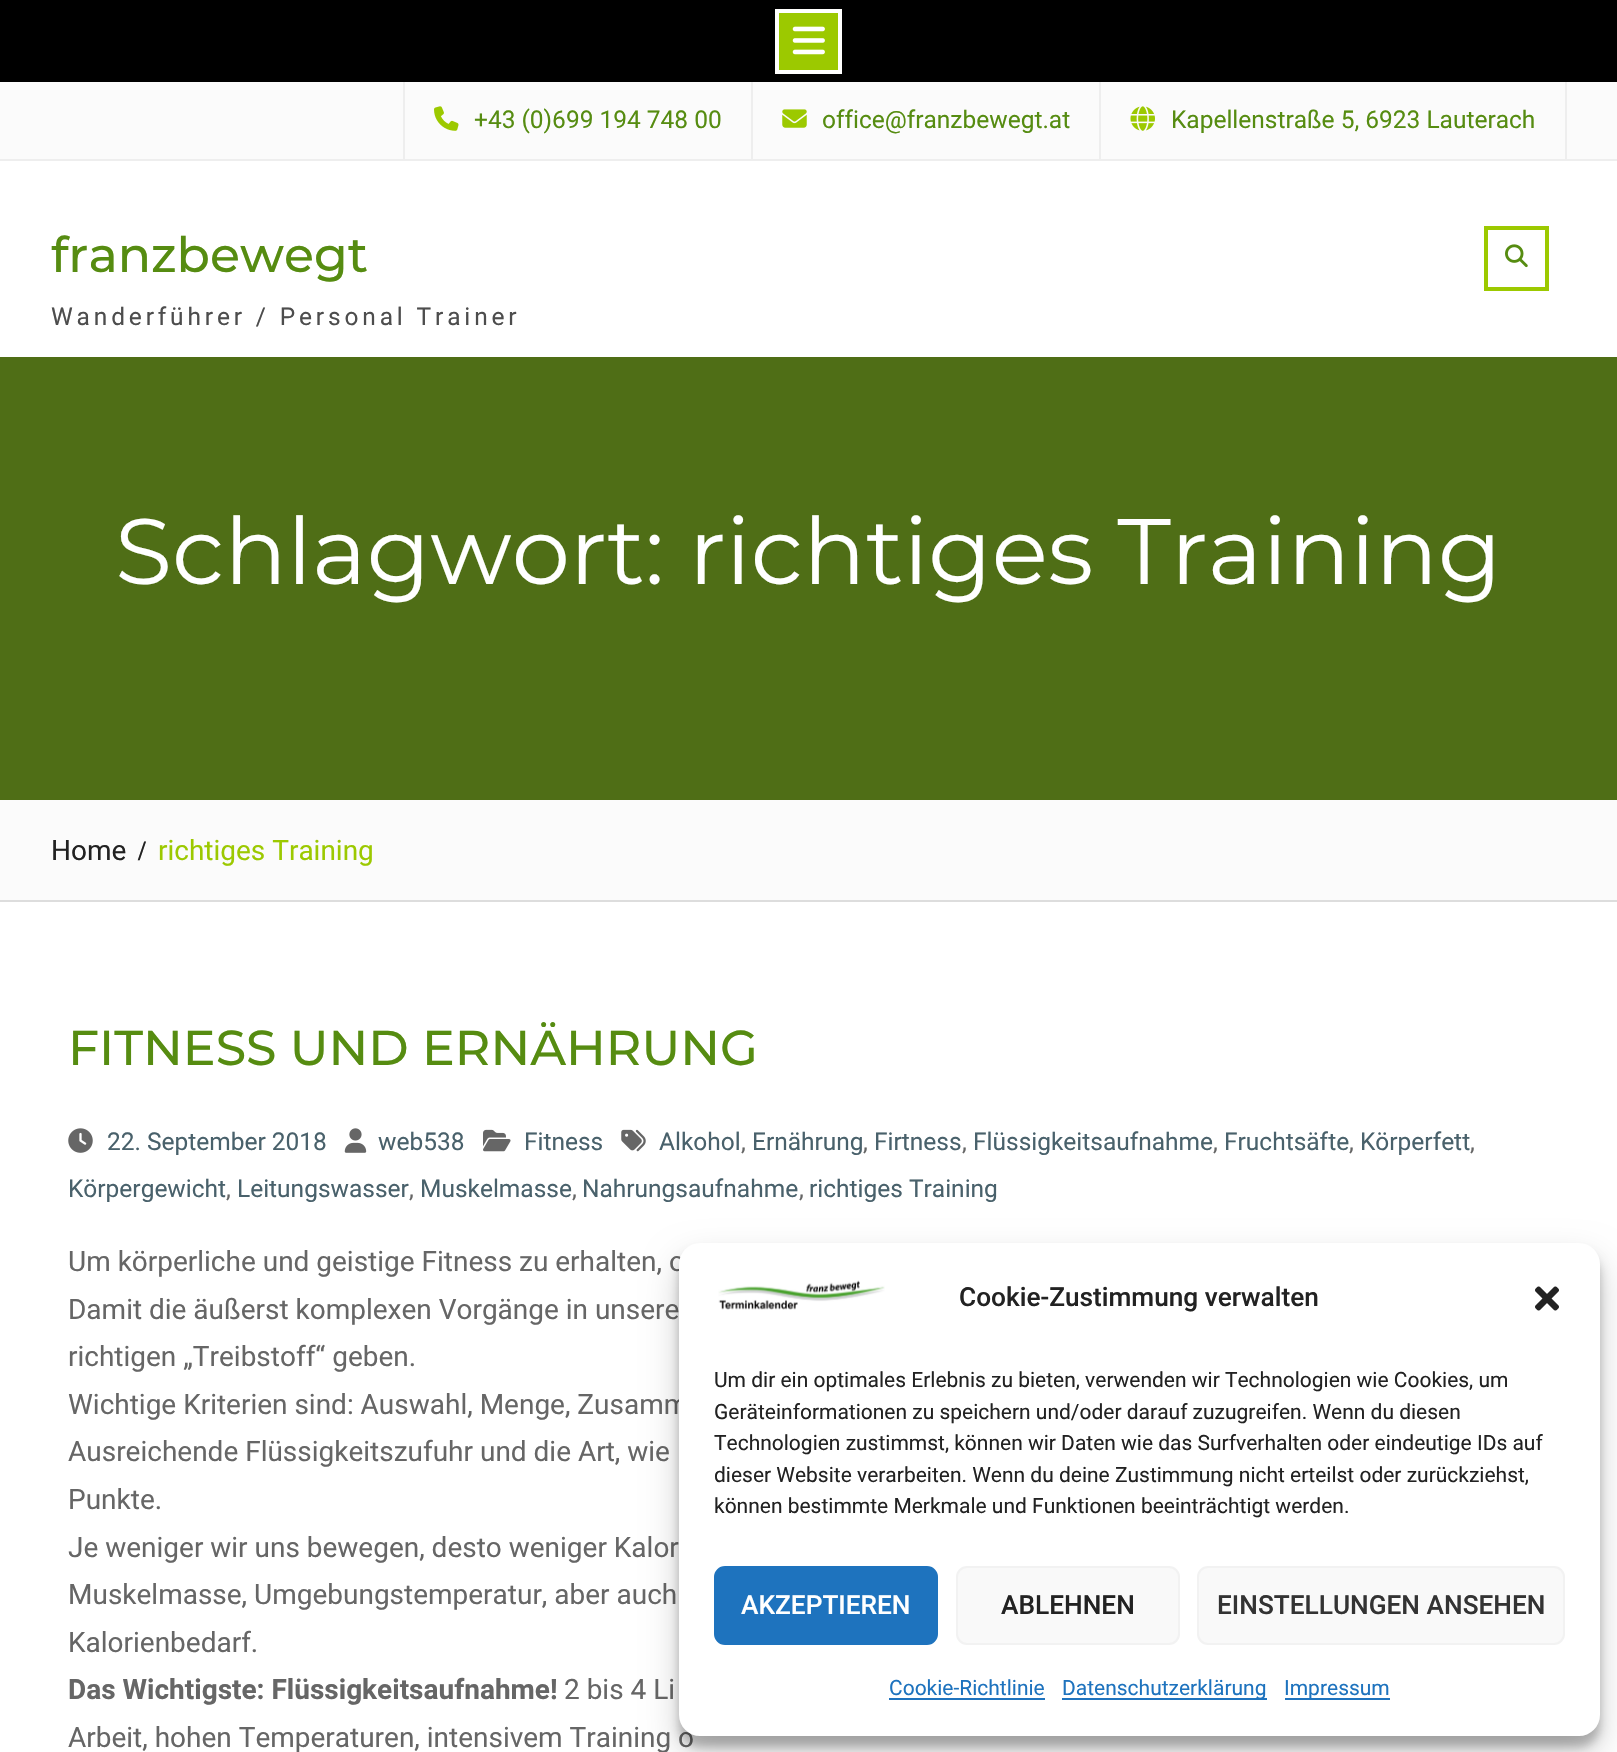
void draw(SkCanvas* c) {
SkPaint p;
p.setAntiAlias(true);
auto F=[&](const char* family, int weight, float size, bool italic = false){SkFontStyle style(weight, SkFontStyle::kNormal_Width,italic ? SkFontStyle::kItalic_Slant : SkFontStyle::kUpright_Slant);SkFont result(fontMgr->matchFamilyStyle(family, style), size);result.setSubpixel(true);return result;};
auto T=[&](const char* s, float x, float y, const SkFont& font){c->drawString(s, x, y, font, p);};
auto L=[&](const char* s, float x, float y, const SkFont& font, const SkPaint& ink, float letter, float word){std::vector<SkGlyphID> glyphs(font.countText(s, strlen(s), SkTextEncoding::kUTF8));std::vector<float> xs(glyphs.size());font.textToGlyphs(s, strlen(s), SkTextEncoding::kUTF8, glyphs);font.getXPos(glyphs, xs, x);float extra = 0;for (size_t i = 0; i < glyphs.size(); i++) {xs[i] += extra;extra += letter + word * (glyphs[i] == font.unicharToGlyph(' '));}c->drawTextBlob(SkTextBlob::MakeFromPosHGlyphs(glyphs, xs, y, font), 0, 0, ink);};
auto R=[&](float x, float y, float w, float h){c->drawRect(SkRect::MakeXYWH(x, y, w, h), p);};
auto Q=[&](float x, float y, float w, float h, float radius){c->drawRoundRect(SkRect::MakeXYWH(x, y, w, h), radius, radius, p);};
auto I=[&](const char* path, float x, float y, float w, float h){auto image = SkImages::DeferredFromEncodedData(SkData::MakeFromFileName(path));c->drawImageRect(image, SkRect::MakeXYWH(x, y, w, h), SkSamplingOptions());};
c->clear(0xffffffff);
p.setColor(0xfffbfbfb);
R(0,82,1617,77);
p.setColor(0xffeeeeee);
R(751,79,2,80);
R(403,79,2,80);
R(1099,79,2,80);
R(1565,79,2,80);
p.setColor(0xff000000);
R(0,0,1617,82);
p.setColor(0xff9cc900);
c->drawRect(SkRect::MakeXYWH(777,11,63,61),p);
p.setStroke(true);
p.setStrokeWidth(4);
p.setColor(0xfffffffe);
c->drawRect(SkRect::MakeXYWH(777,11,63,61),p);
I("1.png",792,26,33,29);
p.setStroke(false);
p.setColor(0xffeeeeee);
R(0,159,1617,2);
I("2.png",434,106,25,25);
auto f1 = F("Roboto",400,24.5);
p.setColor(0xff568c11);
T("+43 (0)699 194 748 00",474,128,f1);
I("3.png",782,109,25,19);
T("office@franzbewegt.at",822,128,f1);
I("4.png",1130,106,25,25);
T("Kapellenstraße 5, 6923 Lauterach",1171,128,f1);
auto f2 = F("Montserrat",100,49);
T("franzbewegt",51,272,f2);
p.setColor(0xff4d4d4d);
L("Wanderführer / Personal Trainer",51,325,f1,p,3.85,0);
p.setStroke(true);
p.setColor(0xff9cc900);
c->drawRect(SkRect::MakeXYWH(1486,228,61,61),p);
I("5.png",1505,244,23,24);
p.setStroke(false);
p.setColor(0xff4f6e16);
R(0,357,1617,443);
auto f3 = F("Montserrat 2",100,92.75);
p.setColor(0xffffffff);
T("Schlagwort: richtiges Training",115,584,f3);
p.setColor(0xfffbfbfb);
R(0,800,1617,100);
p.setColor(0xffdddddd);
R(0,900,1617,2);
auto f4 = F("Roboto",400,28);
p.setColor(0xff222222);
T("Home",51,860,f4);
auto f5 = F("Liberation Serif",700,28);
T("/",138,860,f5);
p.setColor(0xff9cc900);
T("richtiges Training",158,860,f4);
p.setColor(0xff568c11);
T("FITNESS UND ERNÄHRUNG",68,1065,f2);
I("6.png",621,1129,25,23);
p.setColor(0xff49616b);
T("Alkohol",659,1150,f1);
p.setColor(0xff666666);
T(",",741,1150,f1);
p.setColor(0xff49616b);
T("Ernährung",752,1150,f1);
p.setColor(0xff666666);
T(",",863,1150,f1);
p.setColor(0xff49616b);
T("Firtness",874,1150,f1);
p.setColor(0xff666666);
T(",",962,1150,f1);
p.setColor(0xff49616b);
T("Flüssigkeitsaufnahme",973,1150,f1);
p.setColor(0xff666666);
T(",",1213,1150,f1);
p.setColor(0xff49616b);
T("Fruchtsäfte",1224,1150,f1);
p.setColor(0xff666666);
T(",",1349,1150,f1);
p.setColor(0xff49616b);
T("Körperfett",1360,1150,f1);
p.setColor(0xff666666);
T(",",1470,1150,f1);
p.setColor(0xff49616b);
T("Körpergewicht",68,1197,f1);
p.setColor(0xff666666);
T(",",226,1197,f1);
p.setColor(0xff49616b);
T("Leitungswasser",237,1197,f1);
p.setColor(0xff666666);
T(",",409,1197,f1);
p.setColor(0xff49616b);
T("Muskelmasse",420,1197,f1);
p.setColor(0xff666666);
T(",",572,1197,f1);
p.setColor(0xff49616b);
T("Nahrungsaufnahme",582,1197,f1);
p.setColor(0xff666666);
T(",",799,1197,f1);
p.setColor(0xff49616b);
T("richtiges Training",809,1197,f1);
I("7.png",68,1128,25,25);
T("22. September 2018",107,1150,f1);
I("8.png",344,1128,23,25);
T("web538",378,1150,f1);
I("9.png",483,1129,28,23);
T("Fitness",524,1150,f1);
p.setColor(0xff666666);
T("Um körperliche und geistige Fitness zu erhalten, o",68,1271,f4);
T("Damit die äußerst komplexen Vorgänge in unsere",68,1319,f4);
T("richtigen „Treibstoff“ geben.",68,1366,f4);
T("Wichtige Kriterien sind: Auswahl, Menge, Zusamm",68,1414,f4);
T("Ausreichende Flüssigkeitszufuhr und die Art, wie",68,1461,f4);
T("Punkte.",68,1509,f4);
T("Je weniger wir uns bewegen, desto weniger Kalor",68,1557,f4);
T("Muskelmasse, Umgebungstemperatur, aber auch",68,1604,f4);
T("Kalorienbedarf.",68,1652,f4);
auto f6 = F("Roboto",700,28);
T("Das Wichtigste: Flüssigkeitsaufnahme!",68,1699,f6);
T("2 bis 4 Li",564,1699,f4);
T("Arbeit, hohen Temperaturen, intensivem Training o",68,1747,f4);
p.setColor(0x3b000000);
p.setMaskFilter(SkMaskFilter::MakeBlur(kNormal_SkBlurStyle, 5));
c->drawRoundRect(SkRect::MakeXYWH(679,1253,921,494),21,21,p);
p.setMaskFilter(nullptr);
p.setColor(0x30000000);
p.setMaskFilter(SkMaskFilter::MakeBlur(kNormal_SkBlurStyle, 17.5));
c->drawRoundRect(SkRect::MakeXYWH(679,1260,921,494),21,21,p);
p.setMaskFilter(nullptr);
p.setColor(0xffffffff);
Q(679,1243,921,493,21);
I("10.png",718,1280,167,30);
auto f7 = F("Roboto",500,26.25);
p.setColor(0xff222222);
T("Cookie-Zustimmung verwalten",959,1306,f7);
I("11.png",1535,1286,24,25);
auto f8 = F("Roboto",400,21);
T("Um dir ein optimales Erlebnis zu bieten, verwenden wir Technologien wie Cookies, um",714,1387,f8);
T("Geräteinformationen zu speichern und/oder darauf zuzugreifen. Wenn du diesen",714,1419,f8);
T("Technologien zustimmst, können wir Daten wie das Surfverhalten oder eindeutige IDs auf",714,1450,f8);
T("dieser Website verarbeiten. Wenn du deine Zustimmung nicht erteilst oder zurückziehst,",714,1482,f8);
T("können bestimmte Merkmale und Funktionen beeinträchtigt werden.",714,1513,f8);
p.setColor(0xff1e73be);
c->drawRoundRect(SkRect::MakeXYWH(715,1567,222,77),10,10,p);
p.setStroke(true);
p.setStrokeWidth(2);
c->drawRoundRect(SkRect::MakeXYWH(715,1567,222,77),10,10,p);
p.setStroke(false);
p.setColor(0xffffffff);
T("AKZEPTIEREN",741,1614,f7);
p.setColor(0xfff9f9f9);
c->drawRoundRect(SkRect::MakeXYWH(957,1567,222,77),10,10,p);
p.setStroke(true);
p.setColor(0xfff2f2f2);
c->drawRoundRect(SkRect::MakeXYWH(957,1567,222,77),10,10,p);
p.setStroke(false);
p.setColor(0xff222222);
T("ABLEHNEN",1001,1614,f7);
p.setColor(0xfff9f9f9);
c->drawRoundRect(SkRect::MakeXYWH(1198,1567,366,77),10,10,p);
p.setStroke(true);
p.setColor(0xfff2f2f2);
c->drawRoundRect(SkRect::MakeXYWH(1198,1567,366,77),10,10,p);
p.setStroke(false);
p.setColor(0xff333333);
T("EINSTELLUNGEN ANSEHEN",1217,1614,f7);
p.setColor(0xff1e73be);
T("Cookie-Richtlinie",889,1695,f8);
R(889,1698,156,2);
R(1062,1698,205,2);
T("Datenschutzerklärung",1062,1695,f8);
R(1285,1698,105,2);
T("Impressum",1284,1695,f8);
}
